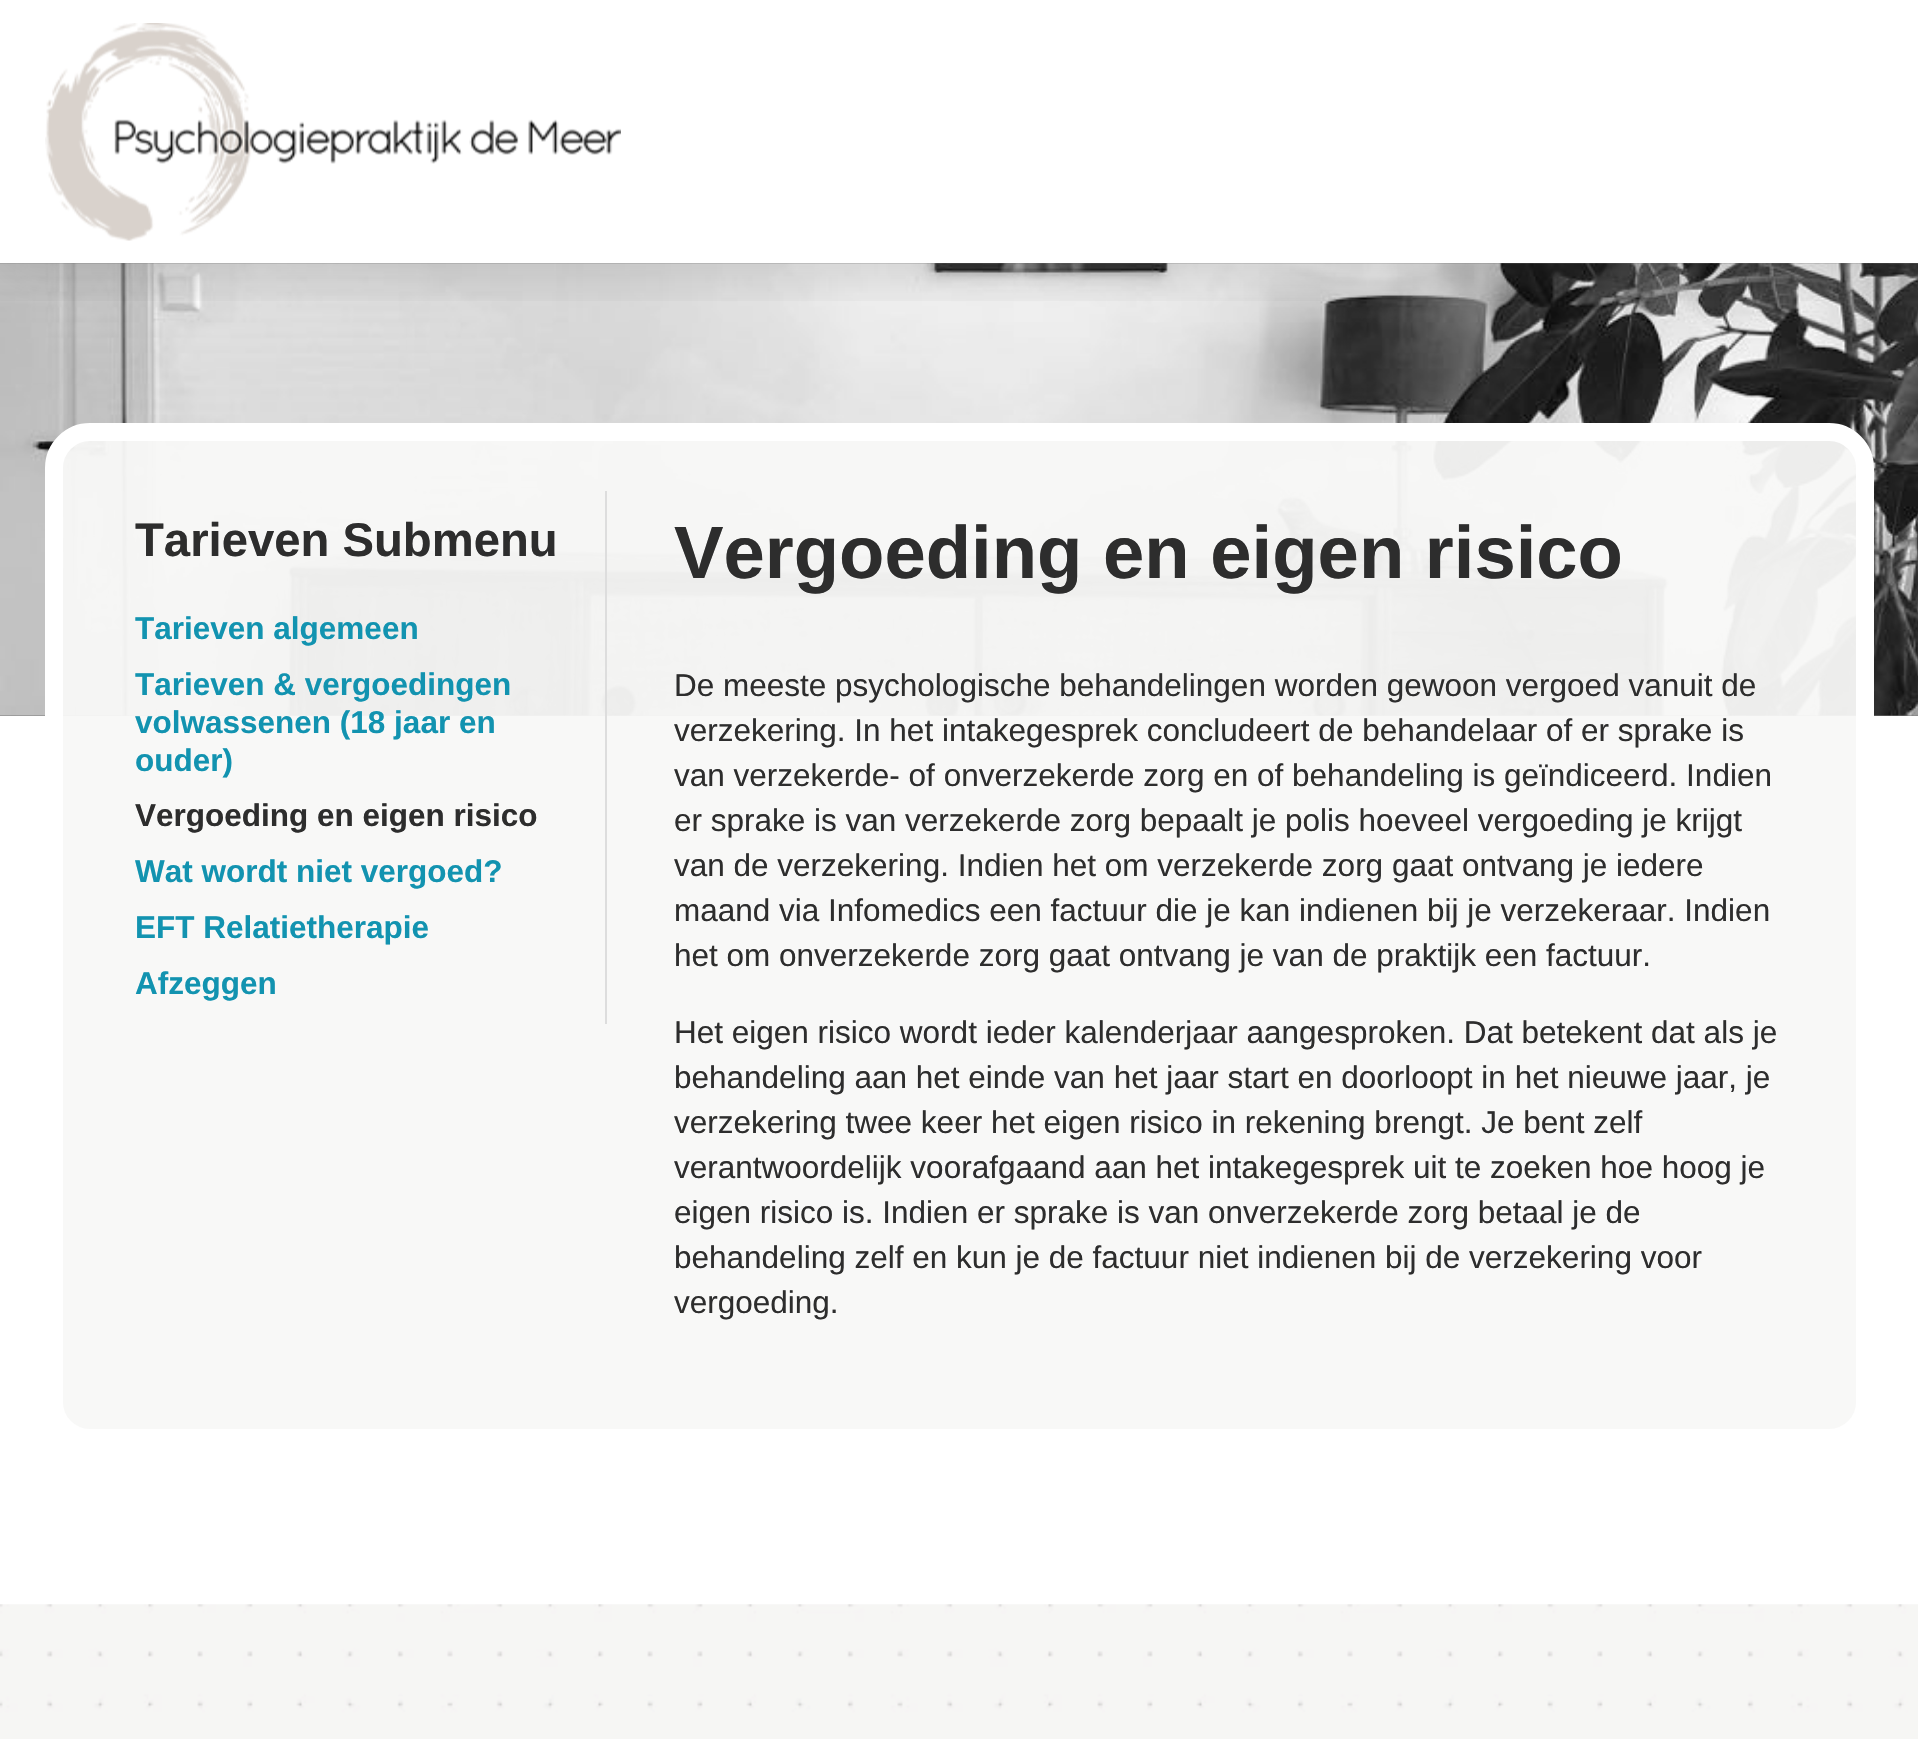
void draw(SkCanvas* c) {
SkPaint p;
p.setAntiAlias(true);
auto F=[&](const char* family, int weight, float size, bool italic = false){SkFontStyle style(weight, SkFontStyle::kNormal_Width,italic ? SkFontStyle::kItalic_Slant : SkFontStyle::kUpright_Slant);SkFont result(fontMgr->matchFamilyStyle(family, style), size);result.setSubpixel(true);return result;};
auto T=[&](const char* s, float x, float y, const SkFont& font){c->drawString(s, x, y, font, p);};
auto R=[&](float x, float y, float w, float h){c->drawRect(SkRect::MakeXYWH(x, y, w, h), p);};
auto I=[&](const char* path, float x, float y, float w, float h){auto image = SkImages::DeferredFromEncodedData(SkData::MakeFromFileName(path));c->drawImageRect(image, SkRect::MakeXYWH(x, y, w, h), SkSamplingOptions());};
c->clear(0xffffffff);
p.setColor(0xff7a7a7a);
R(0,263,1918,453);
I("2.png",0,263,1918,453);
c->save();
c->clipRect(SkRect::MakeXYWH(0,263,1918,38));
p.setColor(0x1f000000);
p.setMaskFilter(SkMaskFilter::MakeBlur(kNormal_SkBlurStyle, 27));
c->drawRect(SkRect::MakeXYWH(0,11,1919,264),p);
p.setMaskFilter(nullptr);
c->restore();
I("1.png",45,23,576,218);
p.setColor(0xf2f8f8f7);
c->drawRoundRect(SkRect::MakeXYWH(54,432,1811,1006),36,36,p);
p.setStroke(true);
p.setStrokeWidth(18);
p.setColor(0xffffffff);
c->drawRoundRect(SkRect::MakeXYWH(54,432,1811,1006),36,36,p);
p.setStroke(false);
p.setColor(0xffdddddd);
R(605,491,2,533);
auto f1 = F("Liberation Sans",700,47.25);
p.setColor(0xff2d2d2d);
T("Tarieven Submenu",135,556,f1);
auto f2 = F("Liberation Sans",700,31.5);
p.setColor(0xff1293b0);
T("Tarieven algemeen",135,639,f2);
T("Tarieven & vergoedingen",135,695,f2);
T("volwassenen (18 jaar en",135,733,f2);
T("ouder)",135,771,f2);
p.setColor(0xff2d2d2d);
T("Vergoeding en eigen risico",135,826,f2);
p.setColor(0xff1293b0);
T("Wat wordt niet vergoed?",135,882,f2);
T("EFT Relatietherapie",135,938,f2);
T("Afzeggen",135,994,f2);
auto f3 = F("Liberation Sans",700,74.25);
p.setColor(0xff2d2d2d);
T("Vergoeding en eigen risico",674,578,f3);
auto f4 = F("Liberation Sans",400,31.5);
T("De meeste psychologische behandelingen worden gewoon vergoed vanuit de",674,696,f4);
T("verzekering. In het intakegesprek concludeert de behandelaar of er sprake is",674,741,f4);
T("van verzekerde- of onverzekerde zorg en of behandeling is geïndiceerd. Indien",674,786,f4);
T("er sprake is van verzekerde zorg bepaalt je polis hoeveel vergoeding je krijgt",674,831,f4);
T("van de verzekering. Indien het om verzekerde zorg gaat ontvang je iedere",674,876,f4);
T("maand via Infomedics een factuur die je kan indienen bij je verzekeraar. Indien",674,921,f4);
T("het om onverzekerde zorg gaat ontvang je van de praktijk een factuur.",674,966,f4);
T("Het eigen risico wordt ieder kalenderjaar aangesproken. Dat betekent dat als je",674,1043,f4);
T("behandeling aan het einde van het jaar start en doorloopt in het nieuwe jaar, je",674,1088,f4);
T("verzekering twee keer het eigen risico in rekening brengt. Je bent zelf",674,1133,f4);
T("verantwoordelijk voorafgaand aan het intakegesprek uit te zoeken hoe hoog je",674,1178,f4);
T("eigen risico is. Indien er sprake is van onverzekerde zorg betaal je de",674,1223,f4);
T("behandeling zelf en kun je de factuur niet indienen bij de verzekering voor",674,1268,f4);
T("vergoeding.",674,1313,f4);
I("3.png",0,1604,1918,135);
}
